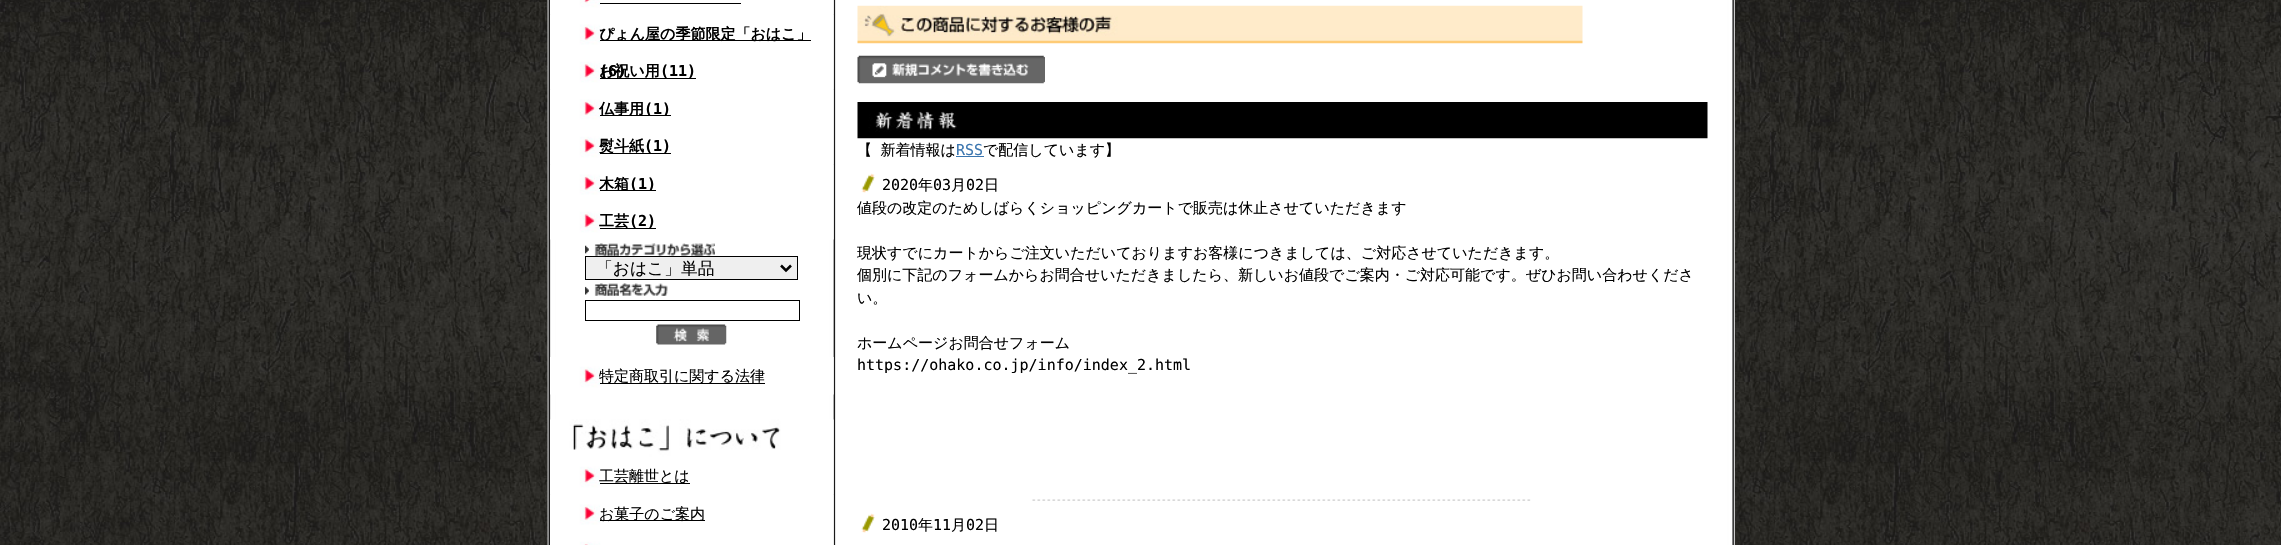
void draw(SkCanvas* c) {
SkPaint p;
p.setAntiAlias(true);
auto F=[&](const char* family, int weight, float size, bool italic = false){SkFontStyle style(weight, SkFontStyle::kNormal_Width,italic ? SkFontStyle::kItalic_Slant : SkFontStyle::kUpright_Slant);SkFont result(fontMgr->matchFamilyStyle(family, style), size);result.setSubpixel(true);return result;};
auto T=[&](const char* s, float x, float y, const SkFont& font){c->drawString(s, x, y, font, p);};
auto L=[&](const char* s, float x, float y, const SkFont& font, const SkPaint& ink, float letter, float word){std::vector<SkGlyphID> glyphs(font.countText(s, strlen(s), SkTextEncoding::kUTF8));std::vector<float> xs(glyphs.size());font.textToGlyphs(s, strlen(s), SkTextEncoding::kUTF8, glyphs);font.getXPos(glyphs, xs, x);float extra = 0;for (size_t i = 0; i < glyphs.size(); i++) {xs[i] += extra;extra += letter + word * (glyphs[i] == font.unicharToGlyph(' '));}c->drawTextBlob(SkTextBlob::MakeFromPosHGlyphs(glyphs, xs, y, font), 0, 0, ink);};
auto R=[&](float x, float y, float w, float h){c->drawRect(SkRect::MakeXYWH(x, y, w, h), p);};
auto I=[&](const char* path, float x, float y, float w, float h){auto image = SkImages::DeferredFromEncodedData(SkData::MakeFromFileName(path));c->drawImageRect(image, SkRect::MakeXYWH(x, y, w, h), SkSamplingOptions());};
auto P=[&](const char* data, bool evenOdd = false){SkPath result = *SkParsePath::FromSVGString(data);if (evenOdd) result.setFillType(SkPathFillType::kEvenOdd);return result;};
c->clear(0xffffffff);
I("1.png",0,0,2281,545);
I("2.png",547,0,1188,545);
I("3.png",550,0,284,15);
p.setColor(0xff000000);
R(600,3,141,1);
I("4.png",550,14,284,38);
R(600,40,211,1);
auto f1 = F("WenQuanYi Zen Hei",700,15);
T("ぴょん屋の季節限定「おはこ」",599,39,f1);
I("5.png",550,52,284,38);
auto f2 = F("DejaVu Sans Mono",700,15);
T("(6)",599,76,f2);
R(600,78,96,1);
T("お祝い用",599,76,f1);
T("(11)",660,76,f2);
I("4.png",550,89,284,38);
R(600,115,71,1);
T("仏事用",599,114,f1);
T("(1)",644,114,f2);
I("5.png",550,127,284,38);
R(600,153,71,1);
T("熨斗紙",599,151,f1);
T("(1)",644,151,f2);
I("4.png",550,164,284,38);
R(600,190,56,1);
T("木箱",599,189,f1);
T("(1)",629,189,f2);
I("5.png",550,202,284,38);
R(600,228,56,1);
T("工芸",599,226,f1);
T("(2)",629,226,f2);
I("6.png",585,243,130,13);
p.setColor(0xffefefef);
c->drawRect(SkRect::MakeXYWH(585.5,256.5,212,23),p);
p.setStroke(true);
p.setStrokeWidth(1);
p.setColor(0xff000000);
c->drawRect(SkRect::MakeXYWH(585.5,256.5,212,23),p);
p.setStrokeWidth(2.5);
c->drawPath(P("M781 265.5l5 5l5-5"),p);
auto f3 = F("WenQuanYi Zen Hei",500,16.75);
p.setStroke(false);
T("「おはこ」単品",596,274,f3);
I("7.png",585,283,83,13);
p.setStroke(true);
p.setStrokeWidth(1);
c->drawRect(SkRect::MakeXYWH(585.5,300.5,214,20),p);
I("8.png",656,324,71,21);
I("9.png",550,357,284,38);
p.setStroke(false);
R(600,383,165,1);
auto f4 = F("WenQuanYi Zen Hei",500,15);
T("特定商取引に関する法律",599,381,f4);
I("10.png",550,419,284,38);
I("5.png",550,457,284,38);
R(600,483,90,1);
T("工芸離世とは",599,481,f4);
I("4.png",550,494,284,38);
R(600,520,105,1);
T("お菓子のご案内",599,519,f4);
I("11.png",550,532,284,13);
I("12.png",857,5,726,39);
I("13.png",857,55,188,29);
I("14.png",857,102,851,37);
L("【 新着情報は",857,155,f4,p,0,4);
auto f5 = F("DejaVu Sans Mono",400,15);
p.setColor(0xff3a75af);
T("RSS",956,155,f5);
R(956,156,28,1);
p.setColor(0xff000000);
T("で配信しています】",983,155,f4);
I("15.png",1032,499,499,2);
I("16.png",861,173,14,20);
T("2020",882,190,f5);
T("年",918,190,f4);
T("03",933,190,f5);
T("月",951,190,f4);
T("02",966,190,f5);
T("日",984,190,f4);
T("値段の改定のためしばらくショッピングカートで販売は休止させていただきます",857,213,f4);
T("現状すでにカートからご注文いただいておりますお客様につきましては、ご対応させていただきます。",857,258,f4);
T("個別に下記のフォームからお問合せいただきましたら、新しいお値段でご案内・ご対応可能です。ぜひお問い合わせくださ",857,280,f4);
T("い。",857,303,f4);
T("ホームページお問合せフォーム",857,348,f4);
T("https://ohako.co.jp/info/index_2.html",857,370,f5);
I("16.png",861,513,14,20);
T("2010",882,530,f5);
T("年",918,530,f4);
T("11",933,530,f5);
T("月",951,530,f4);
T("02",966,530,f5);
T("日",984,530,f4);
}
